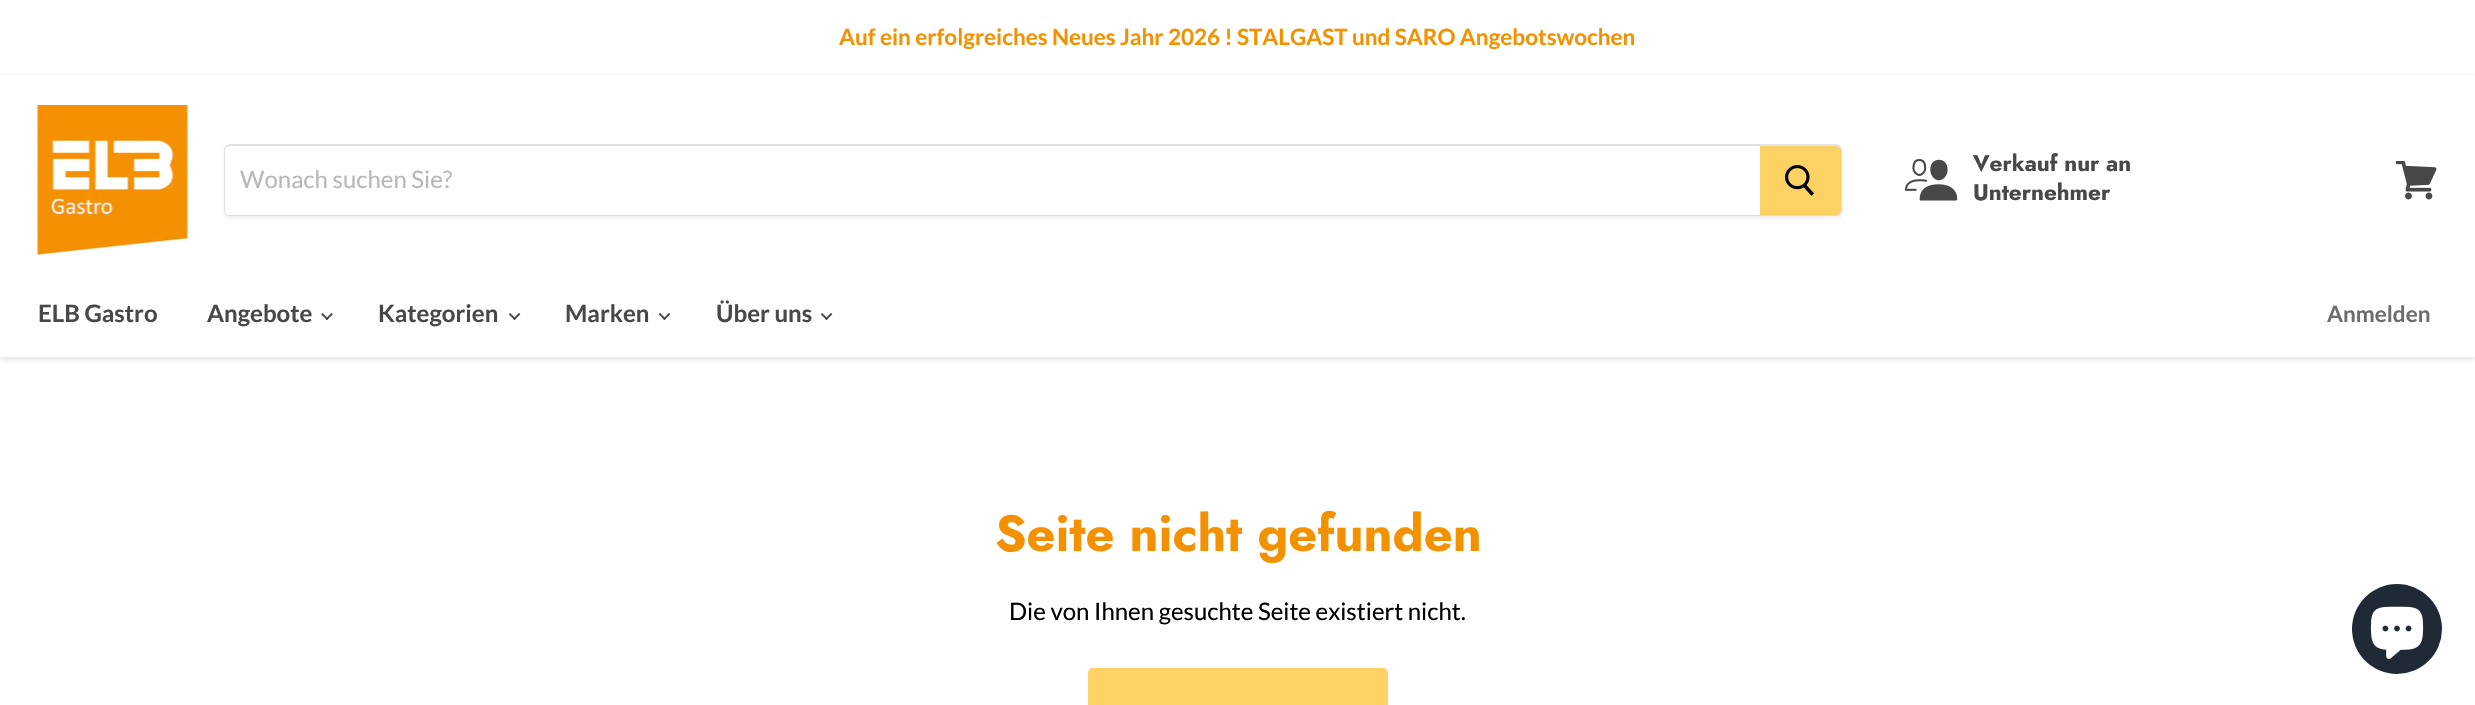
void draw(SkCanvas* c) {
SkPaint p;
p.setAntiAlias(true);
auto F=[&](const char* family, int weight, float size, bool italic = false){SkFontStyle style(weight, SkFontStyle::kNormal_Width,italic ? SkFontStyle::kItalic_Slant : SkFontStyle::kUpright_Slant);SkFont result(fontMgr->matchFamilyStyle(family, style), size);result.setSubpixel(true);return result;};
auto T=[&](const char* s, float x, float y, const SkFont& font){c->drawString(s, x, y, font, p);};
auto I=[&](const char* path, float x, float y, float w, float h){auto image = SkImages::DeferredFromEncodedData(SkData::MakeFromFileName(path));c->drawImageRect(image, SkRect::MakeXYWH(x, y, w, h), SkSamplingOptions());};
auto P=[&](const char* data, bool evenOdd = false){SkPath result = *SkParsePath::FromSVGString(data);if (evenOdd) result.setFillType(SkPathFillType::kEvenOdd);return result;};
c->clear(0xffffffff);
auto f1 = F("Lato",700,22.5);
p.setColor(0xfff39100);
T("Auf ein erfolgreiches Neues Jahr 2026 ! STALGAST und SARO Angebotswochen",839,45,f1);
c->save();
c->clipPath(P("M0 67h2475v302h-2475zm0 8h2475v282h-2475z",true),true);
p.setColor(0x40808080);
p.setMaskFilter(SkMaskFilter::MakeBlur(kNormal_SkBlurStyle, 3));
c->drawRect(SkRect::MakeXYWH(0,77,2475,282),p);
p.setMaskFilter(nullptr);
c->restore();
I("1.png",37,105,151,150);
p.setColor(0x1c808080);
p.setMaskFilter(SkMaskFilter::MakeBlur(kNormal_SkBlurStyle, 2));
c->drawRoundRect(SkRect::MakeXYWH(224,147,1618,72),6,6,p);
p.setMaskFilter(nullptr);
p.setStroke(true);
p.setStrokeWidth(2);
p.setColor(0x33808080);
c->drawRoundRect(SkRect::MakeXYWH(225,145,1616,70),5,5,p);
p.setStroke(false);
p.setColor(0xffffffff);
c->drawPath(P("M230 146h1530v69h-1530c-3 0-5-2-5-5v-59c0-3 2-5 5-5z"),p);
auto f2 = F("Lato",400,24);
p.setColor(0xffb8b8b8);
T("Wonach suchen Sie?",240,188,f2);
p.setColor(0xfffdd264);
c->drawPath(P("M1761 147h75c2 0 4 2 4 4v59c0 2-2 4-4 4h-75z"),p);
p.setStroke(true);
c->drawPath(P("M1761 147h75c2 0 4 2 4 4v59c0 2-2 4-4 4h-75z"),p);
I("2.png",1785,165,29,31);
I("3.png",1905,159,53,42);
auto f3 = F("Jost",700,22.5);
p.setStroke(false);
p.setColor(0xff484848);
T("Verkauf nur an",1973,171,f3);
T("Unternehmer",1973,200,f3);
I("4.png",2396,161,41,39);
auto f4 = F("Lato",700,24);
T("ELB Gastro",38,322,f4);
T("Angebote",207,322,f4);
I("5.png",321,313,12,7);
T("Kategorien",378,322,f4);
I("6.png",509,313,12,7);
T("Marken",565,322,f4);
I("6.png",659,313,12,7);
T("Über uns",716,322,f4);
I("6.png",821,313,12,7);
p.setColor(0xff6d6d6d);
T("Anmelden",2327,322,f1);
auto f5 = F("Jost",700,50.5);
p.setColor(0xfff39100);
T("Seite nicht gefunden",995,551,f5);
p.setColor(0xff000000);
T("Die von Ihnen gesuchte Seite existiert nicht.",1009,620,f2);
p.setColor(0xfffdd264);
c->drawRoundRect(SkRect::MakeXYWH(1089,669,298,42),4,4,p);
p.setStroke(true);
c->drawRoundRect(SkRect::MakeXYWH(1089,669,298,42),4,4,p);
p.setStroke(false);
p.setColor(0xff202a36);
c->drawCircle(2397,629,45,p);
I("7.png",2370,606,54,53);
}
